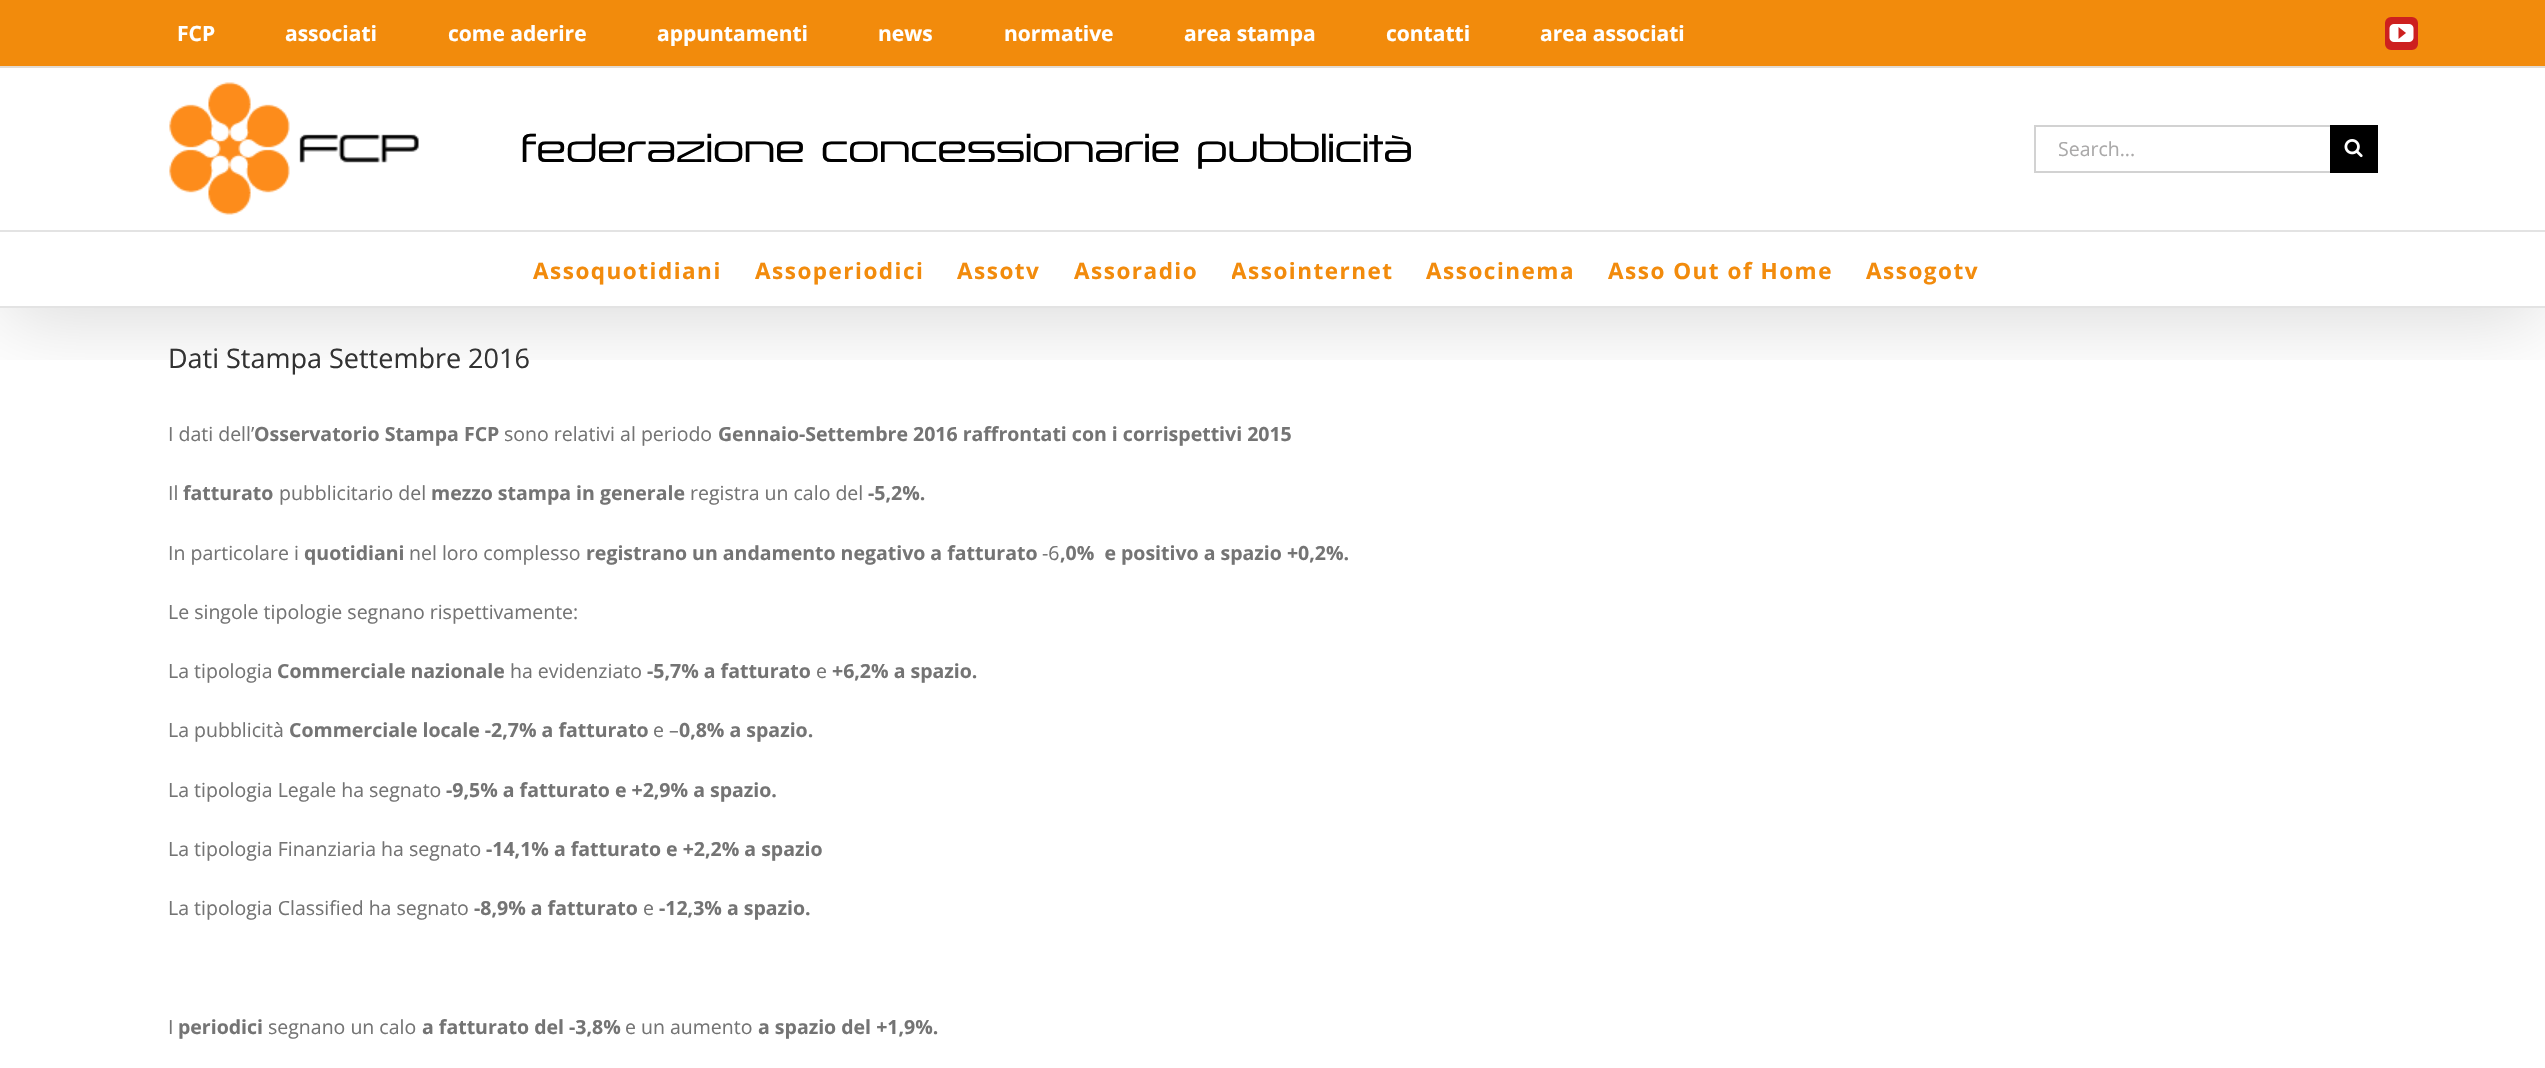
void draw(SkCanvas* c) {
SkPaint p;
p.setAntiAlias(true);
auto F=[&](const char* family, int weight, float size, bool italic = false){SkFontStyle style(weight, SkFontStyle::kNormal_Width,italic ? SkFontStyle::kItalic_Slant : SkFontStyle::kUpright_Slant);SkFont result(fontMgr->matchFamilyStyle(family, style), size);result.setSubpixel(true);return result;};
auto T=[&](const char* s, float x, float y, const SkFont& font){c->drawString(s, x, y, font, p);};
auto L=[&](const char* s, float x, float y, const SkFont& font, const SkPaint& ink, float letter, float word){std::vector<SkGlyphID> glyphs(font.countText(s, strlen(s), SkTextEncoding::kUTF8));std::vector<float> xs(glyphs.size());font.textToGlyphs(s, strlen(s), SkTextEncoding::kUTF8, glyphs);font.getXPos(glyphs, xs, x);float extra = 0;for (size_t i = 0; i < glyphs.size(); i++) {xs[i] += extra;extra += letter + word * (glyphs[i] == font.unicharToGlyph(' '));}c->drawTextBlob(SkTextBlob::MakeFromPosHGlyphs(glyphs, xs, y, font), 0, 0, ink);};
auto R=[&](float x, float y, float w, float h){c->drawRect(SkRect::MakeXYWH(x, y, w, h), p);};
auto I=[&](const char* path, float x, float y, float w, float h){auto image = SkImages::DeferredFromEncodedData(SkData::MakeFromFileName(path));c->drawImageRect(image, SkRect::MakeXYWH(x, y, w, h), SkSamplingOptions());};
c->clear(0xffffffff);
c->save();
c->clipRect(SkRect::MakeXYWH(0,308,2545,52));
p.setColor(0x24000000);
p.setMaskFilter(SkMaskFilter::MakeBlur(kNormal_SkBlurStyle, 37.5));
c->drawRect(SkRect::MakeXYWH(3,18,2540,302),p);
p.setMaskFilter(nullptr);
c->restore();
p.setColor(0xfff28b0c);
R(0,0,2545,66);
p.setColor(0xffe2dbd2);
R(0,66,2545,2);
auto f1 = F("Open Sans",700,21);
p.setColor(0xffffffff);
T("FCP",177,41,f1);
T("associati",285,41,f1);
T("come aderire",448,41,f1);
T("appuntamenti",657,41,f1);
T("news",878,41,f1);
T("normative",1004,41,f1);
T("area stampa",1184,41,f1);
T("contatti",1386,41,f1);
T("area associati",1540,41,f1);
p.setColor(0xffcd201f);
c->drawRoundRect(SkRect::MakeXYWH(2386,18,31,31),5,5,p);
p.setStroke(true);
p.setStrokeWidth(2);
c->drawRoundRect(SkRect::MakeXYWH(2386,18,31,31),5,5,p);
I("1.png",2389,24,25,18);
p.setStroke(false);
p.setColor(0xffe3e3e3);
R(0,230,2545,2);
I("2.png",169,82,250,133);
auto f2 = F("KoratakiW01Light",300,34.5);
p.setColor(0xff000000);
T("federazione concessionarie pubblicità",521,162,f2);
p.setColor(0xffd2d2d2);
R(2034,125,296,2);
R(2034,171,296,2);
R(2034,125,2,48);
auto f3 = F("Open Sans",400,19.5);
p.setColor(0xffaaa9a9);
T("Search...",2058,156,f3);
p.setColor(0xff000000);
R(2330,125,48,48);
I("3.png",2344,139,19,19);
p.setColor(0xffe3e3e3);
R(0,306,2545,2);
auto f4 = F("Open Sans",700,22.5);
p.setColor(0xfff28b0c);
L("Assoquotidiani",533,279,f4,p,1.5,0);
L("Assoperiodici",755,279,f4,p,1.5,0);
L("Assotv",957,279,f4,p,1.5,0);
L("Assoradio",1074,279,f4,p,1.5,0);
c->save();
c->clipRect(SkRect::MakeXYWH(1232,231,195,75));
L("Assointernet",1231,279,f4,p,1.5,0);
c->restore();
L("Associnema",1426,279,f4,p,1.5,0);
L("Asso Out of Home",1608,279,f4,p,1.5,0);
L("Assogotv",1866,279,f4,p,1.5,0);
auto f5 = F("Open Sans",400,27);
p.setColor(0xff333333);
T("Dati Stampa Settembre 2016",168,368,f5);
p.setColor(0xff747474);
T("I dati dell’",168,441,f3);
auto f6 = F("Open Sans",700,19.5);
T("Osservatorio Stampa FCP",254,441,f6);
T("sono relativi al periodo",504,441,f3);
T("Gennaio-Settembre 2016 raffrontati con i corrispettivi 2015",718,441,f6);
T("Il",168,500,f3);
T("fatturato",183,500,f6);
T("pubblicitario del",279,500,f3);
T("mezzo stampa in generale",431,500,f6);
T("registra un calo del",690,500,f3);
T("-5,2%.",868,500,f6);
T("In particolare i",168,560,f3);
T("quotidiani",304,560,f6);
T("nel loro complesso",409,560,f3);
T("registrano un andamento negativo a fatturato",586,560,f6);
T("-6",1042,560,f3);
T(",0%  e positivo a spazio +0,2%.",1060,560,f6);
T("Le singole tipologie segnano rispettivamente:",168,619,f3);
T("La tipologia",168,678,f3);
T("Commerciale nazionale",277,678,f6);
T("ha evidenziato",510,678,f3);
T("-5,7% a fatturato",647,678,f6);
T("e",816,678,f3);
T("+6,2% a spazio.",832,678,f6);
T("La pubblicità",168,737,f3);
T("Commerciale locale -2,7% a fatturato",289,737,f6);
T("e –",653,737,f3);
T("0,8% a spazio.",679,737,f6);
T("La tipologia Legale ha segnato",168,797,f3);
T("-9,5% a fatturato e +2,9% a spazio.",446,797,f6);
T("La tipologia Finanziaria ha segnato",168,856,f3);
T("-14,1% a fatturato e +2,2% a spazio",486,856,f6);
T("La tipologia Classified ha segnato",168,915,f3);
T("-8,9% a fatturato",474,915,f6);
T("e",643,915,f3);
T("-12,3% a spazio.",659,915,f6);
T("I",168,1034,f3);
T("periodici",178,1034,f6);
T("segnano un calo",268,1034,f3);
T("a fatturato del -3,8%",422,1034,f6);
T("e un aumento",625,1034,f3);
T("a spazio del +1,9%.",758,1034,f6);
}
